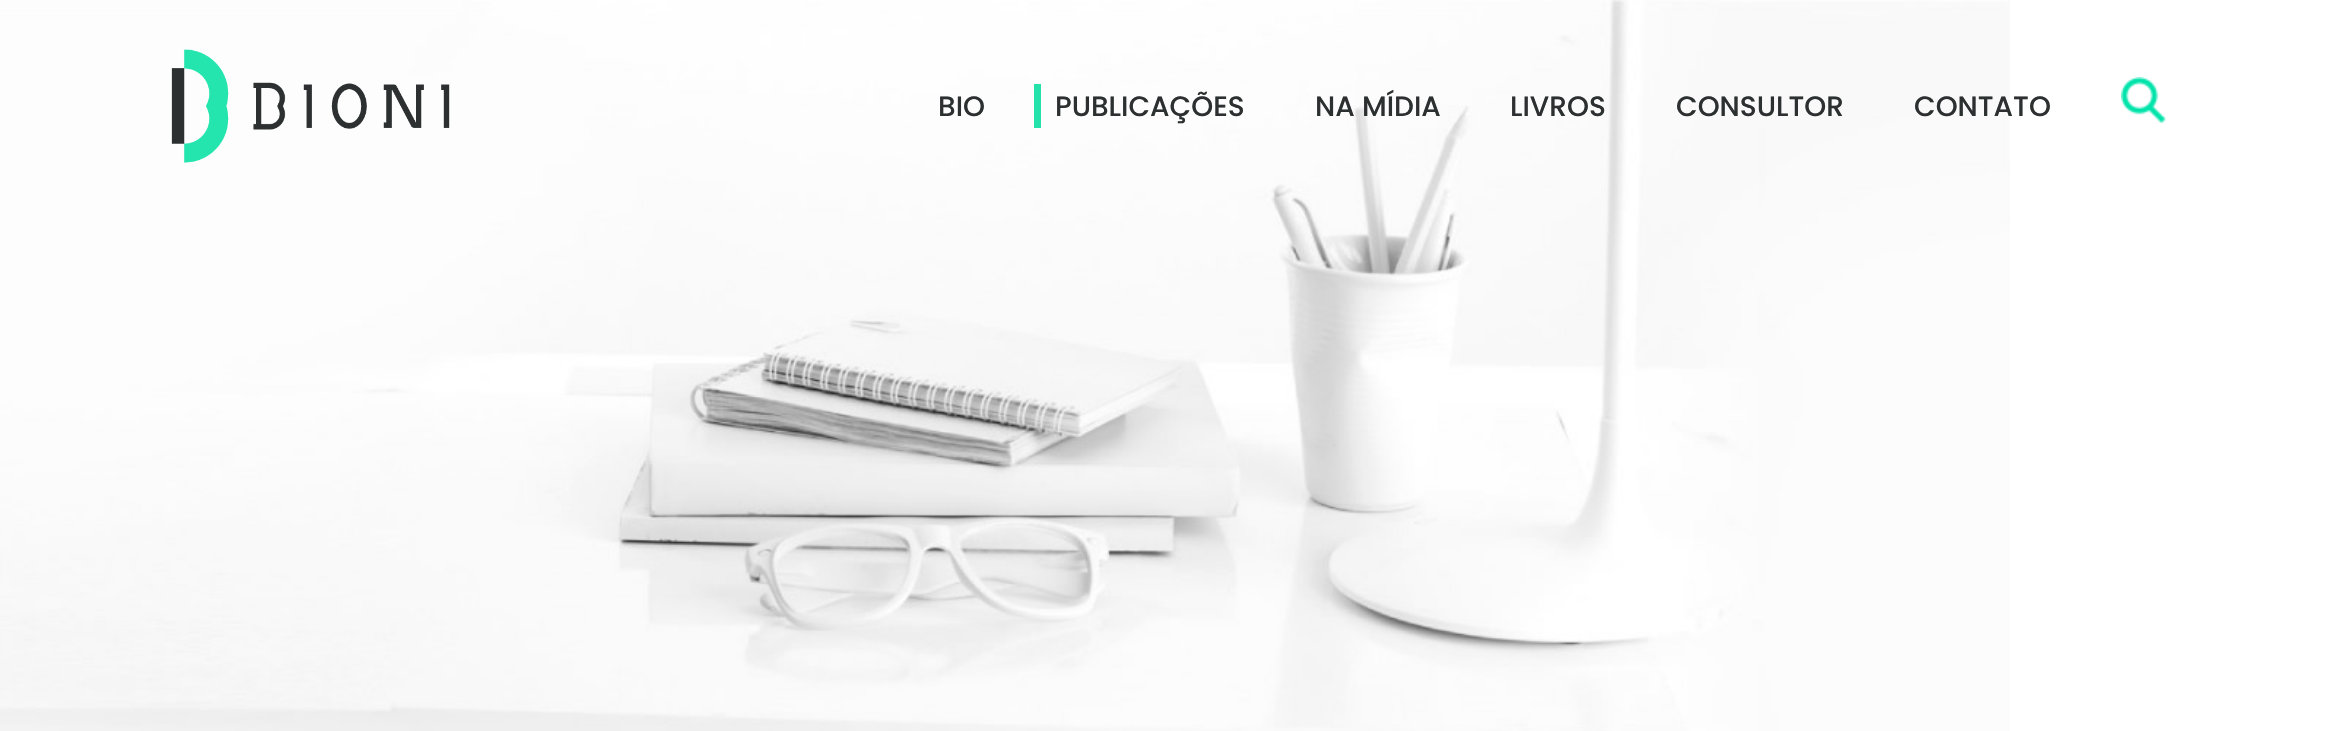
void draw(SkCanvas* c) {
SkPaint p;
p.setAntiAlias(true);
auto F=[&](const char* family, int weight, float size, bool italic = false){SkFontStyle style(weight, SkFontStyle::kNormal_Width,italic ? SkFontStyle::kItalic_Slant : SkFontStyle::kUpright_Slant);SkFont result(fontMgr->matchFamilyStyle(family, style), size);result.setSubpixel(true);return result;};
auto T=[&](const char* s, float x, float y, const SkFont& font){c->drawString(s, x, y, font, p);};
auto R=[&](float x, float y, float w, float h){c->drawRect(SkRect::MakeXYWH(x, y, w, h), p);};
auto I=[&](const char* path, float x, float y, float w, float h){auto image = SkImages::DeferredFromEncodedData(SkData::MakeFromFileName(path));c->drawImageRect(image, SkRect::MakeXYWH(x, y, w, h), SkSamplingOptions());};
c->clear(0xffffffff);
I("1.png",0,0,2010,731);
I("2.png",171,49,279,114);
auto f1 = F("Poppins",500,28);
p.setColor(0xff2c3030);
T("BIO",938,116,f1);
p.setColor(0xff25e2ab);
R(1034,84,7,44);
p.setColor(0xff2c3030);
T("PUBLICAÇÕES",1055,116,f1);
T("NA MÍDIA",1315,116,f1);
T("LIVROS",1510,116,f1);
T("CONSULTOR",1676,116,f1);
T("CONTATO",1914,116,f1);
I("3.png",2121,77,46,46);
}
